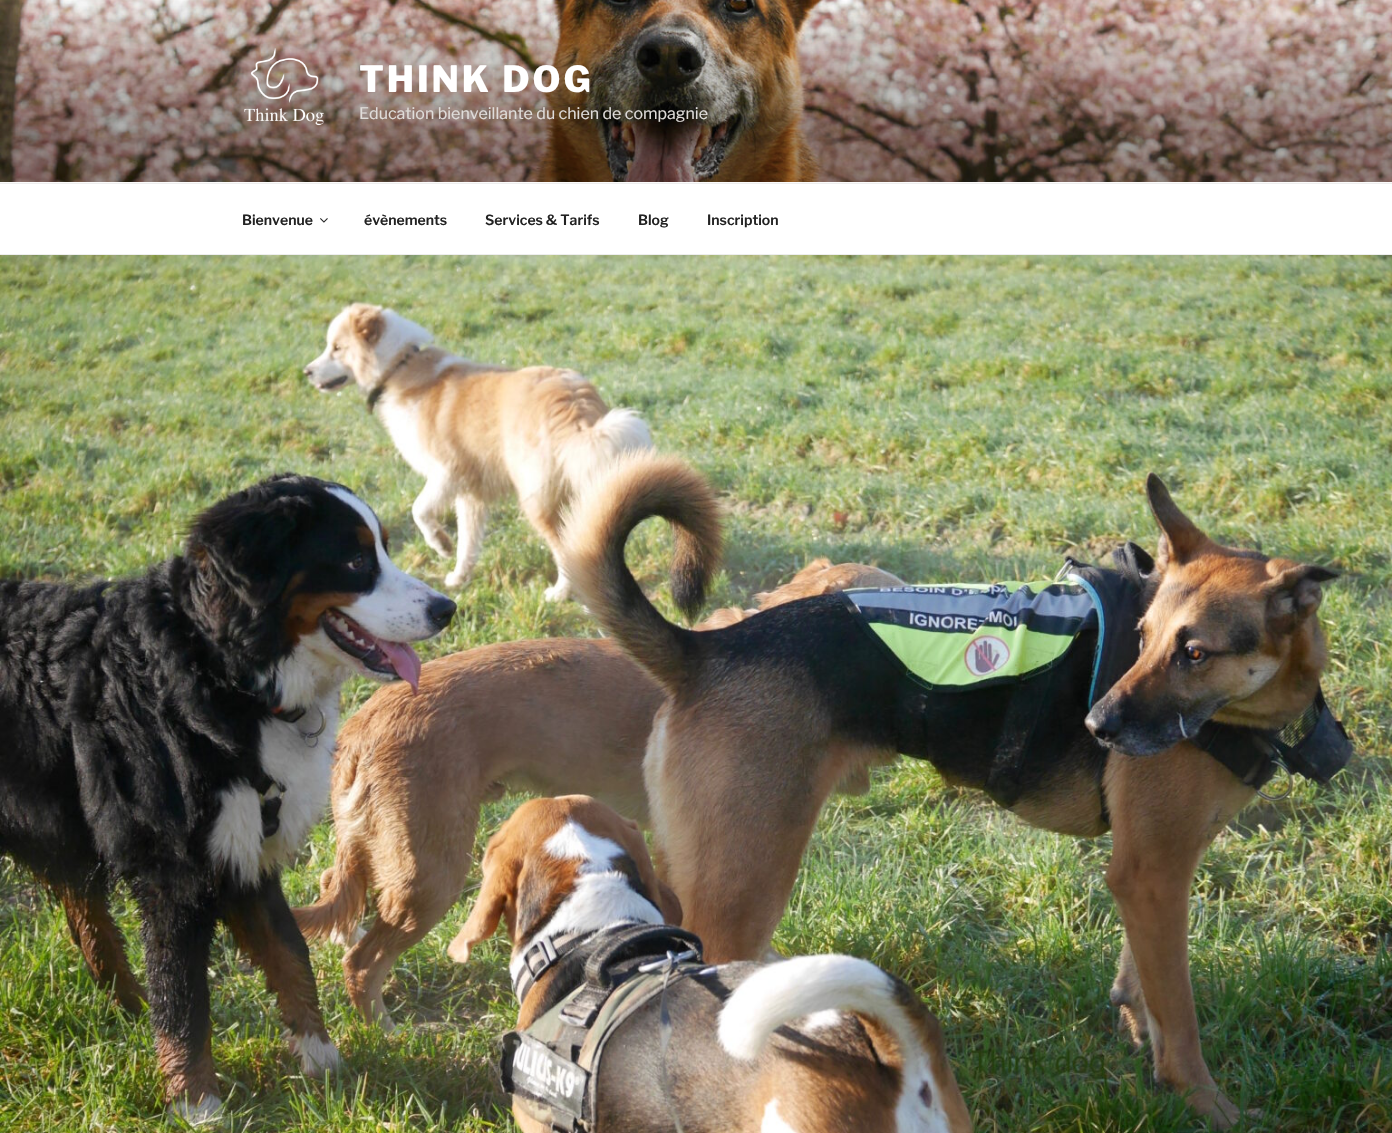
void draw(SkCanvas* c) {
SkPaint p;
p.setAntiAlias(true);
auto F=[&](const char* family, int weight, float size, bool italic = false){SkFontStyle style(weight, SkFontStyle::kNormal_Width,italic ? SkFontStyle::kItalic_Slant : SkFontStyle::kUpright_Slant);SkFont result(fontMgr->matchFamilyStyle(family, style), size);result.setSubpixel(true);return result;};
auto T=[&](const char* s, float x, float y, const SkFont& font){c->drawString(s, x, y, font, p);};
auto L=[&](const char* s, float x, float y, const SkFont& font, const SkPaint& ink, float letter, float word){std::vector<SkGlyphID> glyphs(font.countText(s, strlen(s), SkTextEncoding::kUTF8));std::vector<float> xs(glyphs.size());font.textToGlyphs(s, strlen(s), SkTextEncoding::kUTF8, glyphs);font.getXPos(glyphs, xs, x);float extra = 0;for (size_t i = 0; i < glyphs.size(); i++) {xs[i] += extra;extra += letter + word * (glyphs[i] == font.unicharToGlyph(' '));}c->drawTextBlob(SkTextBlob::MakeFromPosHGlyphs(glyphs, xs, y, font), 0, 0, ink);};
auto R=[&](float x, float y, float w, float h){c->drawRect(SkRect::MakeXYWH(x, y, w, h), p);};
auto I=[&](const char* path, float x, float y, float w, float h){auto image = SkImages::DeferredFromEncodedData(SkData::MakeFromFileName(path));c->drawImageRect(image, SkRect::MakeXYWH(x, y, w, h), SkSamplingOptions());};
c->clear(0xffffffff);
p.setColor(0xfffafafa);
R(0,182,1392,1);
I("1.png",0,0,1392,182);
I("2.png",244,48,80,78);
auto f1 = F("Libre Franklin",100,36);
p.setColor(0xffffffff);
L("THINK DOG",359,92,f1,p,2.9,0);
auto f2 = F("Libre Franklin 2",100,16);
p.setColor(0xffe0ddda);
T("Education bienveillante du chien de compagnie",359,119,f2);
p.setColor(0xffeeeeee);
R(0,183,1392,1);
R(0,254,1392,1);
auto f3 = F("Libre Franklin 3",100,14);
p.setColor(0xff222222);
T("Bienvenue",242,225,f3);
I("3.png",320,218,8,5);
T("évènements",364,225,f3);
T("Services & Tarifs",485,225,f3);
T("Blog",638,225,f3);
T("Inscription",707,225,f3);
I("4.png",0,255,1392,878);
}
